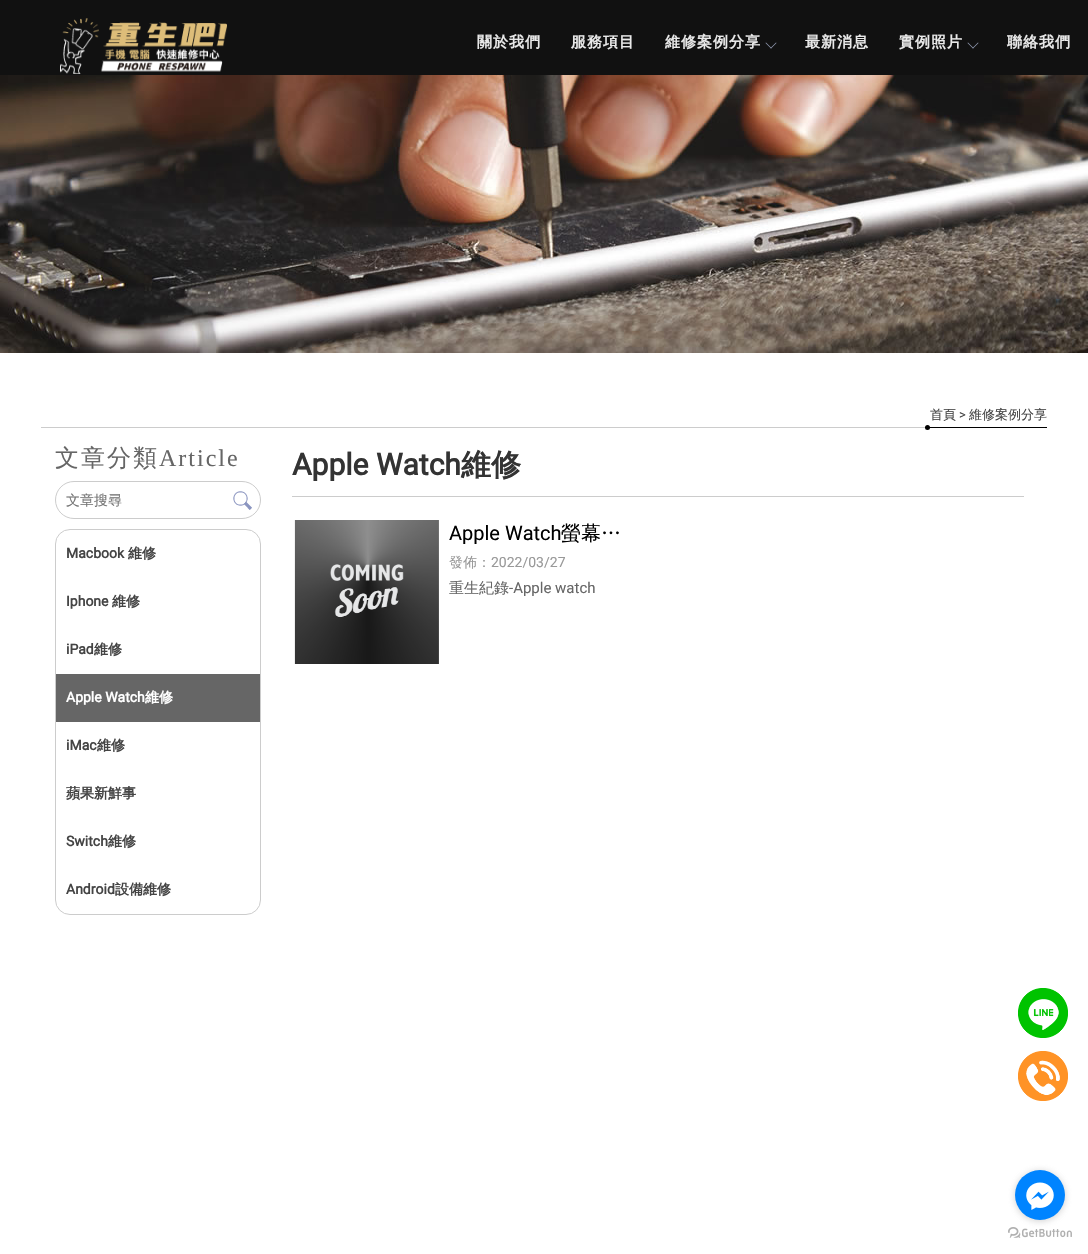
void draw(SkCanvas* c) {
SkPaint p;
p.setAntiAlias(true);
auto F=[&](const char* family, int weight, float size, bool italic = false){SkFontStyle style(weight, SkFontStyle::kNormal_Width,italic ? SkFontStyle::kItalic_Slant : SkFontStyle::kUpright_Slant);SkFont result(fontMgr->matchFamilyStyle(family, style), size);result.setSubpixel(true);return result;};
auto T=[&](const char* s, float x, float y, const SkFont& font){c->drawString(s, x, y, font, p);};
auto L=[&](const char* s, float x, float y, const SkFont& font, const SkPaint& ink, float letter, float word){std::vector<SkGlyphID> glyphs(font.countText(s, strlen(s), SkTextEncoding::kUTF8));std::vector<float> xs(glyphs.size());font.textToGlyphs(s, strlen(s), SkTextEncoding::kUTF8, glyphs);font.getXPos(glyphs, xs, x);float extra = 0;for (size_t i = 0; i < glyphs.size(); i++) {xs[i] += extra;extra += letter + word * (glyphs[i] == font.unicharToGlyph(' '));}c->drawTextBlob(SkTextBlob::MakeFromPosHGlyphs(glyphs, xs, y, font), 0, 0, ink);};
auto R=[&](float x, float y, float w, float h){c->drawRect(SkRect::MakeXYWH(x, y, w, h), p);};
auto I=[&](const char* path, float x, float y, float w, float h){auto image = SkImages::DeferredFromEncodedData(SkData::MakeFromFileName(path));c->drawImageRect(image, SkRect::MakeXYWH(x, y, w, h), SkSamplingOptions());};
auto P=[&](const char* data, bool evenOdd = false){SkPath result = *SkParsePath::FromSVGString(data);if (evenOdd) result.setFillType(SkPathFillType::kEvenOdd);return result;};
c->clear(0xffffffff);
p.setColor(0xff111111);
R(0,0,1088,75);
I("1.png",60,18,167,56);
auto f1 = F("WenQuanYi Zen Hei",700,15);
p.setColor(0xffe9e9e9);
L("關於我們",477,47,f1,p,1,0);
L("服務項目",571,47,f1,p,1,0);
L("維修案例分享",665,47,f1,p,1,0);
p.setColor(0xff929cb3);
c->drawPath(P("M776 42.5l.5 .5l-5.5 5.5l-.5-.5z"),p);
c->drawPath(P("M766 42.5l5.5 5.5l-.5 .5l-5.5-5.5z"),p);
p.setColor(0xffe9e9e9);
L("最新消息",805,47,f1,p,1,0);
L("實例照片",899,47,f1,p,1,0);
p.setColor(0xff929cb3);
c->drawPath(P("M978 42.5l.5 .5l-5.5 5.5l-.5-.5z"),p);
c->drawPath(P("M968 42.5l5.5 5.5l-.5 .5l-5.5-5.5z"),p);
p.setColor(0xffe9e9e9);
L("聯絡我們",1007,47,f1,p,1,0);
I("2.png",0,75,1088,278);
p.setColor(0xffcccccc);
R(41,427,884,1);
p.setColor(0xff000000);
R(925,427,122,1);
auto f2 = F("WenQuanYi Zen Hei",500,13);
p.setColor(0xff444444);
T("首頁",930,419,f2);
auto f3 = F("Roboto",400,13);
T(">",959,419,f3);
T("維修案例分享",969,419,f2);
p.setColor(0xff000000);
c->drawCircle(927.5,427.5,2.5,p);
auto f4 = F("WenQuanYi Zen Hei",500,24);
p.setColor(0xff666666);
L("文章分類",55,466,f4,p,2,0);
auto f5 = F("Liberation Serif",400,24);
L("Article",159,466,f5,p,2,0);
p.setStroke(true);
p.setStrokeWidth(1);
p.setColor(0xffcccccc);
c->drawRoundRect(SkRect::MakeXYWH(55.5,481.5,205,37),18.5,18.5,p);
auto f6 = F("WenQuanYi Zen Hei",500,14);
p.setStroke(false);
p.setColor(0xff757575);
T("文章搜尋",66,505,f6);
I("3.png",233,491,19,19);
p.setStroke(true);
p.setColor(0xffcccccc);
c->drawRoundRect(SkRect::MakeXYWH(55.5,529.5,205,385),14.5,14.5,p);
auto f7 = F("Roboto",700,14);
p.setStroke(false);
p.setColor(0xff444444);
T("Macbook",66,558,f7);
auto f8 = F("WenQuanYi Zen Hei",700,14);
T("維修",128,558,f8);
T("Iphone",66,606,f7);
T("維修",112,606,f8);
T("iPad",66,654,f7);
T("維修",94,654,f8);
p.setColor(0xff666666);
R(56,674,204,48);
p.setColor(0xffffffff);
T("Apple Watch",66,702,f7);
T("維修",145,702,f8);
p.setColor(0xff444444);
T("iMac",66,750,f7);
T("維修",97,750,f8);
T("蘋果新鮮事",66,798,f8);
T("Switch",66,846,f7);
T("維修",108,846,f8);
T("Android",66,894,f7);
T("設備維修",115,894,f8);
p.setColor(0xffcccccc);
R(292,496,732,1);
auto f9 = F("Roboto",700,30);
p.setColor(0xff333333);
T("Apple Watch",292,475,f9);
auto f10 = F("WenQuanYi Zen Hei",700,30);
T("維修",461,475,f10);
I("4.png",294,520,145,144);
auto f11 = F("Roboto",400,20);
p.setColor(0xff000000);
T("Apple Watch",449,540,f11);
auto f12 = F("WenQuanYi Zen Hei",500,20);
T("螢幕…",561,540,f12);
p.setColor(0xff999999);
T("發佈：",449,567,f6);
auto f13 = F("Roboto",400,14);
T("2022/03/27",491,567,f13);
auto f14 = F("WenQuanYi Zen Hei",500,15);
p.setColor(0xff666666);
T("重生紀錄",449,593,f14);
auto f15 = F("Roboto",400,15);
T("-Apple watch",509,593,f15);
I("5.png",1018,988,50,50);
I("6.png",1018,1051,50,50);
I("8.png",1008,1227,64,11);
p.setColor(0x66888888);
p.setMaskFilter(SkMaskFilter::MakeBlur(kNormal_SkBlurStyle, 3.5));
c->drawRoundRect(SkRect::MakeXYWH(1015,1171,50,50),25,25,p);
p.setMaskFilter(nullptr);
p.setColor(0xff0084ff);
c->drawCircle(1040,1195,25,p);
I("7.png",1026,1182,28,28);
}
